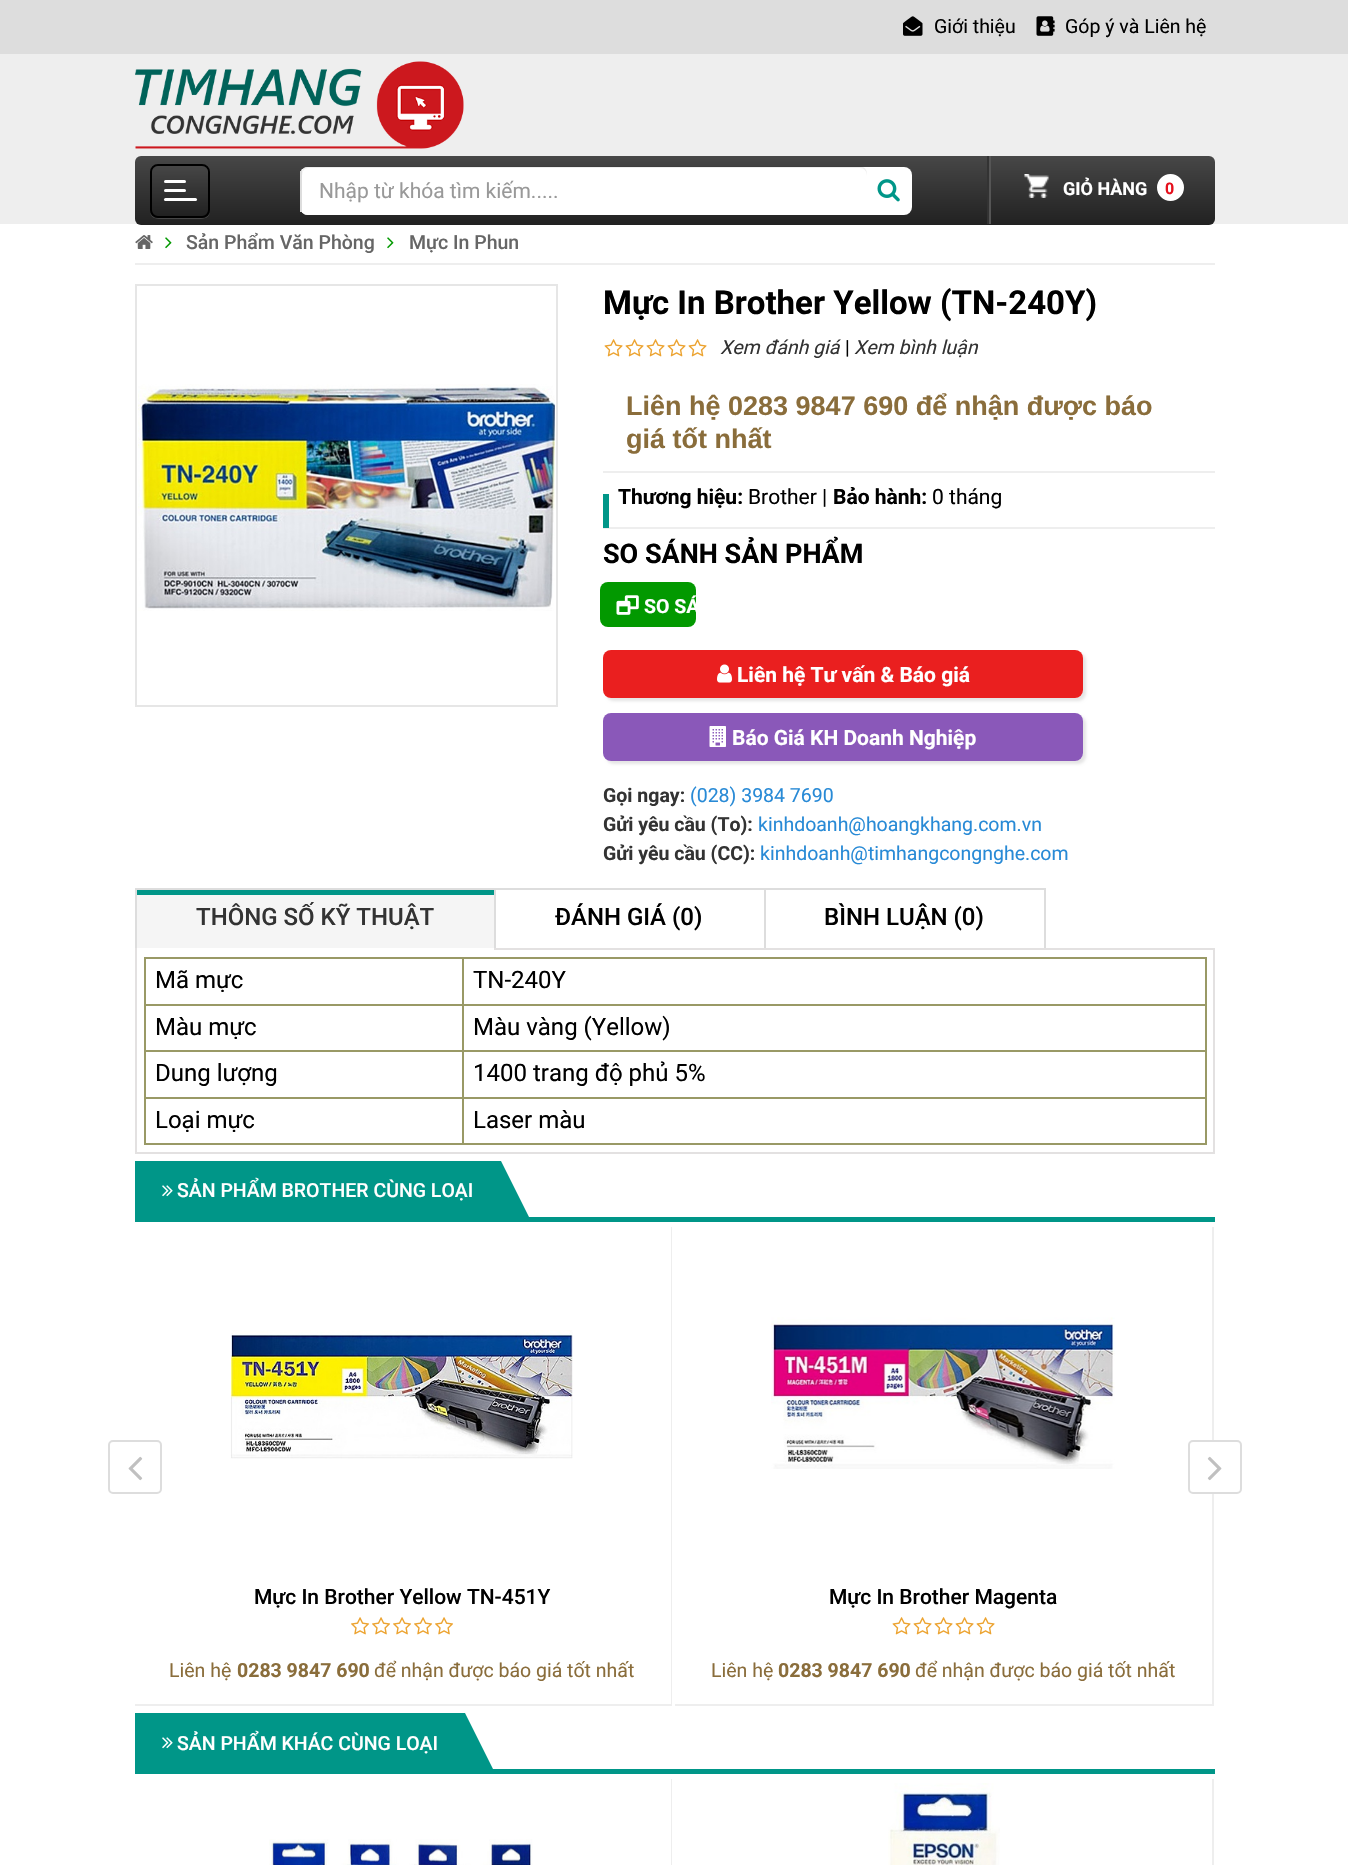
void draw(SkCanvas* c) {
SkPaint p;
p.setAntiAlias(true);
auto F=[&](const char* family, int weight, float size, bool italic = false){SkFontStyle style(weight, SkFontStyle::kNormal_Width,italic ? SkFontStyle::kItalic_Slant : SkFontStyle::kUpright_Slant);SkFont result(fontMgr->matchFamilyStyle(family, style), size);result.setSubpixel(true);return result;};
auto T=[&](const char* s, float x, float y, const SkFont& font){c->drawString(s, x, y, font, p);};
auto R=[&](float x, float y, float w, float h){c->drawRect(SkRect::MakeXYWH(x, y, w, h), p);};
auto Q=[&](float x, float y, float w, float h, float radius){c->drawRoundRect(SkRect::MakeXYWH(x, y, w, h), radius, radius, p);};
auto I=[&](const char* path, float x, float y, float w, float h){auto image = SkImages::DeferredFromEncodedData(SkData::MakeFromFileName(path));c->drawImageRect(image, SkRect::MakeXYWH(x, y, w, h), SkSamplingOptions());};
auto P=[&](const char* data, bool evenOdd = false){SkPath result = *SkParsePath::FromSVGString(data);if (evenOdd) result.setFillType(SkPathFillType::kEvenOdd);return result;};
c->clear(0xffffffff);
p.setColor(0xffdddddd);
R(0,0,1348,54);
I("1.png",903,16,20,20);
auto f1 = F("Roboto",400,19.5);
p.setColor(0xff000000);
T("Giới thiệu",934,33,f1);
I("2.png",1036,16,19,20);
T("Góp ý và Liên hệ",1065,33,f1);
p.setColor(0xffeeeeee);
R(0,54,1348,170);
I("3.png",135,61,329,88);
{
const SkColor colors[] = {0xff474747,0xff212121};
const float stops[] = {0,1};
const SkPoint ends[] = {{675,156}, {675,225}};
p.setShader(SkGradientShader::MakeLinear(ends, colors, stops, 2, SkTileMode::kClamp));
p.setAlpha(255);
}
Q(135,156,1080,69,6);
p.setShader(nullptr);
p.setColor(0xff464646);
c->drawPath(P("M150 210c0 10 8 9 15 9h30c7 0 15 1 15-9c0 4-3 8-8 8h-44c-5 0-8-4-8-8z"),p);
c->save();
c->clipPath(P("M158 164h44c4.5 0 8 3.5 8 8v38c0 4.5-3.5 8-8 8h-44c-4.5 0-8-3.5-8-8v-38c0-4.5 3.5-8 8-8z"),true);
{
const SkColor colors[] = {0xff474747,0xff212121};
const float stops[] = {0,1};
const SkPoint ends[] = {{180,165}, {180,216}};
p.setShader(SkGradientShader::MakeLinear(ends, colors, stops, 2, SkTileMode::kClamp));
p.setAlpha(255);
}
R(150,165,60,51);
c->restore();
p.setShader(nullptr);
p.setColor(0x33ffffff);
c->drawPath(P("M158 166h45c6 1 5 8 5 13v35c1-1 1-3 1-4v-39c0-3-3-6-6-6h-45c-3 0-6 3-6 6v1c0-3 2-6 6-6z"),p);
p.setStroke(true);
p.setStrokeWidth(2);
p.setColor(0xff000000);
c->drawRoundRect(SkRect::MakeXYWH(151,165,58,52),7,7,p);
p.setStroke(false);
p.setColor(0xffffffff);
Q(164,180,22,3,1.5);
Q(164,189,22,3,1.5);
Q(164,198,33,3,1.5);
Q(300,167,612,48,8);
Q(300,167,567,48,8);
p.setColor(0x12000000);
c->drawPath(P("M308 168h552c4 0 7 3 7 8v-2c0-4-3-8-7-8h-552c-4 0-6 4-6 8v33v4v-30c0-4-1-13 6-13z"),p);
p.setColor(0xffdddddd);
R(300,171,2,41);
auto f2 = F("Roboto",400,21);
p.setColor(0xff999999);
T("Nhập từ khóa tìm kiếm.....",319,198,f2);
I("4.png",877,179,23,23);
p.setColor(0xff333333);
R(987,156,2,68);
p.setColor(0xff555555);
R(989,156,2,68);
I("5.png",1024,174,25,24);
auto f3 = F("Roboto",700,18);
p.setColor(0xffffffff);
T("GIỎ HÀNG",1063,195,f3);
c->drawCircle(1170.5,187.5,12.5,p);
p.setStroke(true);
c->drawCircle(1170.5,187.5,12.5,p);
auto f4 = F("Roboto",700,16);
p.setStroke(false);
p.setColor(0xffe5101d);
T("0",1165,194,f4);
p.setColor(0xffeeeeee);
R(135,263,1080,2);
I("6.png",135,235,18,14);
I("7.png",165,237,7,12);
auto f5 = F("Roboto",500,19.5);
p.setColor(0xff666666);
T("Sản Phẩm Văn Phòng",186,249,f5);
I("7.png",387,237,7,12);
T("Mực In Phun",409,249,f5);
p.setStroke(true);
p.setColor(0xffe6e6e6);
c->drawRect(SkRect::MakeXYWH(136,285,421,421),p);
I("8.png",138,384,417,227);
auto f6 = F("Roboto",700,33);
p.setStroke(false);
p.setColor(0xff000000);
T("Mực In Brother Yellow (TN-240Y)",603,314,f6);
I("9.png",604,339,19,18);
I("9.png",625,339,19,18);
I("9.png",646,339,19,18);
I("9.png",667,339,19,18);
I("9.png",688,339,19,18);
auto f7 = F("Roboto",400,19.5,true);
p.setColor(0xff333333);
T("Xem đánh giá",720,354,f7);
p.setColor(0xff000000);
T("|",845,354,f1);
p.setColor(0xff333333);
T("Xem bình luận",854,354,f7);
auto f8 = F("Liberation Sans",700,27);
p.setColor(0xff8a6d3b);
T("Liên hệ 0283 9847 690 để nhận được báo",626,415,f8);
T("giá tốt nhất",626,448,f8);
p.setColor(0xffeeeeee);
R(603,471,612,2);
R(603,527,612,2);
p.setColor(0xff009688);
R(603,494,6,34);
auto f9 = F("Roboto",700,21);
p.setColor(0xff000000);
T("Thương hiệu:",618,504,f9);
T("Brother |",748,504,f2);
T("Bảo hành:",833,504,f9);
T("0 tháng",932,504,f2);
auto f10 = F("Roboto",700,27);
T("SO SÁNH SẢN PHẨM",603,563,f10);
p.setColor(0xff029900);
Q(600,582,96,45,8);
I("10.png",616,595,23,20);
auto f11 = F("Roboto",700,19.5);
p.setColor(0xffffffff);
T("SO SÁ",644,613,f11);
c->save();
c->clipPath(P("M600 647h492v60h-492zm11 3h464c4.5 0 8 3.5 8 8v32c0 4.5-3.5 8-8 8h-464c-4.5 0-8-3.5-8-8v-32c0-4.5 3.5-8 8-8z",true),true);
p.setColor(0x1a000000);
p.setMaskFilter(SkMaskFilter::MakeBlur(kNormal_SkBlurStyle, 1.5));
c->drawRoundRect(SkRect::MakeXYWH(606,653,480,48),8,8,p);
p.setMaskFilter(nullptr);
c->restore();
p.setColor(0xe0e70000);
Q(603,650,480,48,8);
I("11.png",717,664,15,19);
p.setColor(0xffffffff);
T("Liên hệ Tư vấn & Báo giá",737,682,f9);
c->save();
c->clipPath(P("M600 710h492v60h-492zm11 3h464c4.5 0 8 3.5 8 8v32c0 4.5-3.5 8-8 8h-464c-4.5 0-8-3.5-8-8v-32c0-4.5 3.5-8 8-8z",true),true);
p.setColor(0x1a000000);
p.setMaskFilter(SkMaskFilter::MakeBlur(kNormal_SkBlurStyle, 1.5));
c->drawRoundRect(SkRect::MakeXYWH(606,716,480,48),8,8,p);
p.setMaskFilter(nullptr);
c->restore();
p.setColor(0xe07a41af);
Q(603,713,480,48,8);
I("12.png",709,726,17,21);
p.setColor(0xffffffff);
T("Báo Giá KH Doanh Nghiệp",732,745,f9);
p.setColor(0xff333333);
T("Gọi ngay:",603,802,f11);
p.setColor(0xff288ad6);
T("(028) 3984 7690",690,802,f1);
p.setColor(0xff333333);
T("Gửi yêu cầu (To):",603,831,f11);
p.setColor(0xff288ad6);
T("kinhdoanh@hoangkhang.com.vn",758,831,f1);
p.setColor(0xff333333);
T("Gửi yêu cầu (CC):",603,860,f11);
p.setColor(0xff288ad6);
T("kinhdoanh@timhangcongnghe.com",760,860,f1);
p.setColor(0xfff5f5f5);
R(137,895,357,53);
p.setColor(0xffdddddd);
R(135,888,911,2);
R(135,888,2,60);
p.setColor(0xff009688);
R(137,890,357,5);
auto f12 = F("Roboto",500,24);
p.setColor(0xff333333);
T("THÔNG SỐ KỸ THUẬT",196,925,f12);
p.setStroke(true);
p.setColor(0xffe3e1e1);
c->drawRect(SkRect::MakeXYWH(136,949,1078,204),p);
p.setStroke(false);
p.setColor(0xffffffff);
R(137,948,357,2);
p.setColor(0xffdddddd);
R(494,888,2,60);
p.setColor(0xff000000);
T("ĐÁNH GIÁ (0)",555,925,f12);
p.setColor(0xffdddddd);
R(1044,888,2,60);
R(764,888,2,60);
p.setColor(0xff000000);
T("BÌNH LUẬN (0)",824,925,f12);
p.setColor(0xff999966);
R(462,957,744,2);
R(462,1004,744,2);
R(462,1050,744,2);
R(462,1097,744,2);
R(1205,1097,2,48);
R(462,1143,744,2);
R(462,1097,2,48);
R(144,1097,320,2);
R(462,1050,2,48);
R(144,1050,320,2);
R(462,1004,2,48);
R(144,1004,320,2);
R(462,957,2,48);
R(144,957,320,2);
R(144,1143,320,2);
R(144,1097,2,48);
R(144,1050,2,48);
R(144,1004,2,48);
R(144,957,2,48);
auto f13 = F("Roboto",400,24);
p.setColor(0xff000000);
T("Mã mực",155,988,f13);
p.setColor(0xff999966);
R(1205,1050,2,48);
R(1205,1004,2,48);
R(1205,957,2,48);
p.setColor(0xff000000);
T("TN-240Y",473,988,f13);
T("Màu mực",155,1035,f13);
T("Màu vàng (Yellow)",473,1035,f13);
T("Dung lượng",155,1081,f13);
T("1400 trang độ phủ 5%",473,1081,f13);
T("Loại mực",155,1128,f13);
T("Laser màu",473,1128,f13);
p.setColor(0xff009688);
R(135,1217,1080,5);
R(135,1161,366,56);
I("13.png",162,1185,11,12);
p.setColor(0xffffffff);
T("SẢN PHẨM BROTHER CÙNG LOẠI",177,1197,f5);
p.setColor(0xff009688);
c->drawPath(P("M531 1221h-30v-60z"),p);
p.setStroke(true);
p.setColor(0xffdddddd);
c->drawRoundRect(SkRect::MakeXYWH(109,1441,52,52),4,4,p);
I("14.png",128,1456,15,25);
p.setStroke(false);
p.setColor(0xffeeeeee);
R(1212,1227,2,479);
p.setColor(0xffffffff);
c->drawRoundRect(SkRect::MakeXYWH(1189,1441,52,52),4,4,p);
p.setStroke(true);
p.setColor(0xffdddddd);
c->drawRoundRect(SkRect::MakeXYWH(1189,1441,52,52),4,4,p);
I("15.png",1207,1456,15,25);
p.setStroke(false);
p.setColor(0xffeeeeee);
R(671,1227,1,479);
R(135,1704,537,2);
I("16.png",230,1330,343,129);
auto f14 = F("Roboto",500,21);
p.setColor(0xff000000);
T("Mực In Brother Yellow TN-451Y",254,1604,f14);
I("17.png",351,1617,19,18);
I("17.png",372,1617,19,18);
I("17.png",393,1617,19,18);
I("17.png",414,1617,19,18);
I("17.png",435,1617,19,18);
p.setColor(0xff8a6d3b);
T("Liên hệ",169,1677,f1);
T("0283 9847 690",237,1677,f11);
T("để nhận được báo giá tốt nhất",374,1677,f1);
p.setColor(0xffeeeeee);
R(675,1704,539,2);
I("18.png",771,1317,344,152);
p.setColor(0xff000000);
T("Mực In Brother Magenta",829,1604,f14);
I("9.png",892,1617,19,18);
I("9.png",913,1617,19,18);
I("9.png",934,1617,19,18);
I("9.png",955,1617,19,18);
I("9.png",976,1617,19,18);
p.setColor(0xff8a6d3b);
T("Liên hệ",711,1677,f1);
T("0283 9847 690",778,1677,f11);
T("để nhận được báo giá tốt nhất",915,1677,f1);
p.setColor(0xff009688);
R(135,1769,1080,5);
R(135,1713,330,56);
I("13.png",162,1737,11,12);
p.setColor(0xffffffff);
T("SẢN PHẨM KHÁC CÙNG LOẠI",177,1750,f5);
p.setColor(0xff009688);
c->drawPath(P("M495 1773h-30v-60z"),p);
p.setColor(0xffeeeeee);
R(671,1779,1,86);
I("19.png",269,1839,264,26);
R(1212,1779,2,86);
I("20.png",888,1783,112,82);
}
